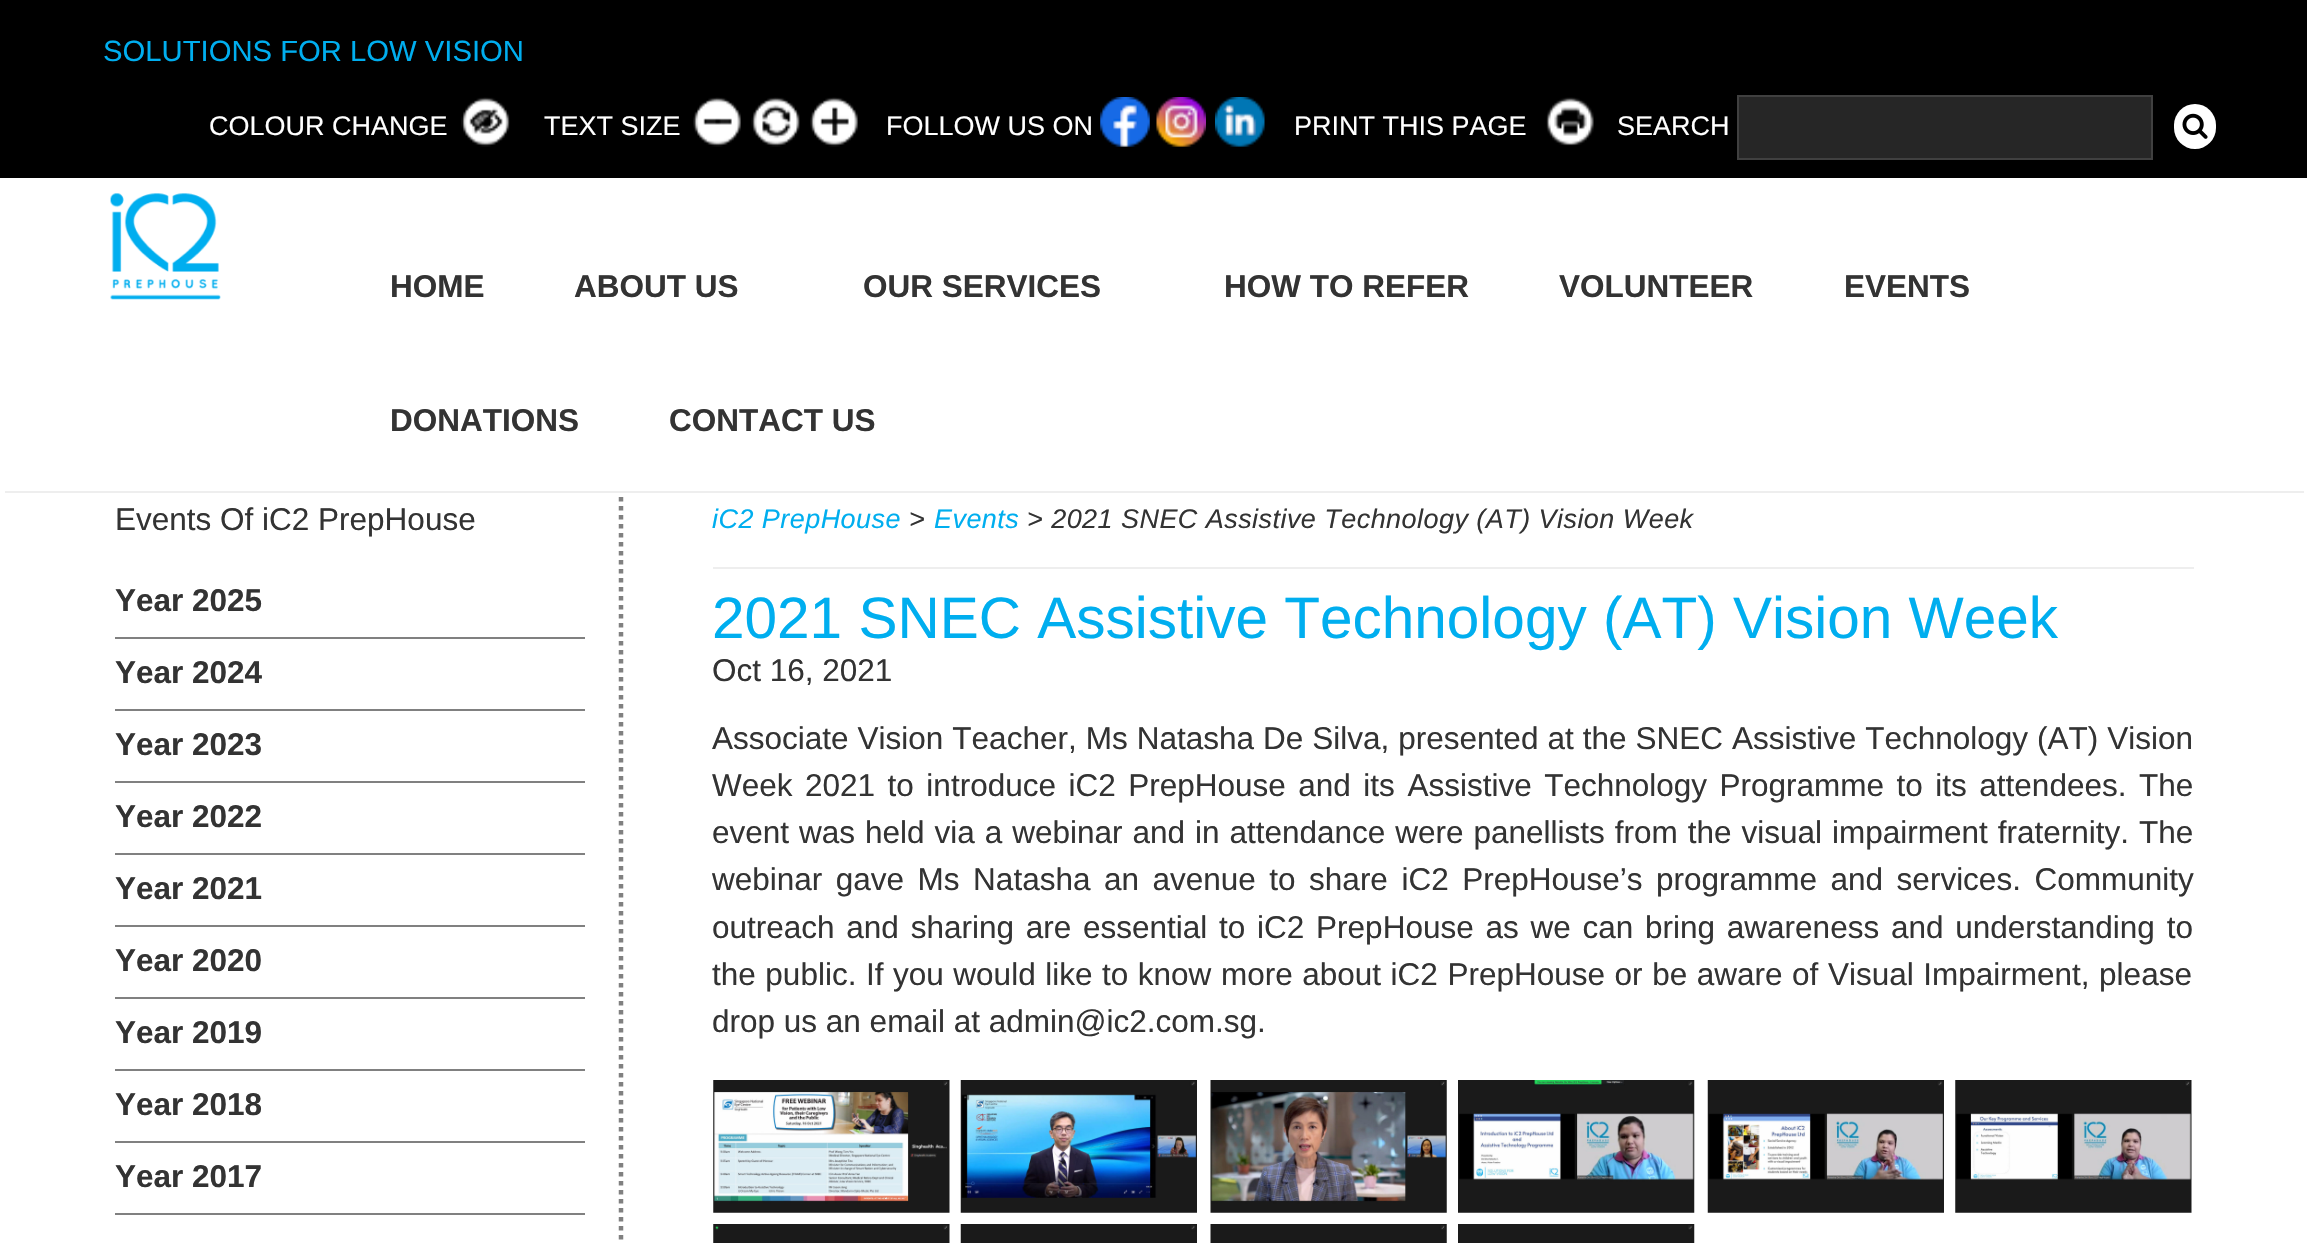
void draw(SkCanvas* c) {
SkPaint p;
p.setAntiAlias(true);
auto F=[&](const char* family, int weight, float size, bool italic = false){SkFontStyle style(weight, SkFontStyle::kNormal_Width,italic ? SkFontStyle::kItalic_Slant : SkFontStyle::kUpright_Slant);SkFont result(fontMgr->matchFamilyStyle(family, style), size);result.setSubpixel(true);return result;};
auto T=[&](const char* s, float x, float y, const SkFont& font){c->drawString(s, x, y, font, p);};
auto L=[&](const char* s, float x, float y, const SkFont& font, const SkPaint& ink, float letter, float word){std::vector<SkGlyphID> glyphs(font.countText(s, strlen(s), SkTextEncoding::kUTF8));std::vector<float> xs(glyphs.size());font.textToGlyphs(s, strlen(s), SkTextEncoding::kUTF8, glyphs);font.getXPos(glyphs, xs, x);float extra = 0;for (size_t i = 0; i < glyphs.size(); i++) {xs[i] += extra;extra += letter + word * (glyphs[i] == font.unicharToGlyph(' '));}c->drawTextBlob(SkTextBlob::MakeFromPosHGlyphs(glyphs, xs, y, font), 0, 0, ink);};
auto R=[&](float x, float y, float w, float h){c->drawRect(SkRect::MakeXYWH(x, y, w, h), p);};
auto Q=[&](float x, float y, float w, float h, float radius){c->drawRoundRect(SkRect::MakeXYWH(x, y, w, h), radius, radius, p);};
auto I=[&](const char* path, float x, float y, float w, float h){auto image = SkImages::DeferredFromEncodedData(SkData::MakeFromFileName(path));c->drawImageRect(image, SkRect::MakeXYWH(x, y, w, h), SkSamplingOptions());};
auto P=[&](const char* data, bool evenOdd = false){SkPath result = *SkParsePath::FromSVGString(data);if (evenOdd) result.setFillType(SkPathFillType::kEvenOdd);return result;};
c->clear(0xffffffff);
p.setColor(0xff000000);
R(0,0,2307,178);
auto f1 = F("Liberation Sans",400,29.25);
p.setColor(0xff00aeef);
T("SOLUTIONS FOR LOW VISION",103,61,f1);
auto f2 = F("Liberation Sans",400,27);
p.setColor(0xffffffff);
T("COLOUR CHANGE",209,135,f2);
I("1.png",461,97,49,50);
T("TEXT SIZE",544,135,f2);
I("2.png",693,97,48,50);
I("3.png",751,97,49,50);
I("4.png",810,97,48,50);
T("FOLLOW US ON",886,135,f2);
I("5.png",1100,97,50,50);
I("6.png",1156,97,50,50);
I("7.png",1215,97,50,50);
T("PRINT THIS PAGE",1294,135,f2);
I("8.png",1546,97,48,49);
T("SEARCH",1617,135,f2);
p.setColor(0xff262626);
c->drawRect(SkRect::MakeXYWH(1738,96,414,63),p);
p.setStroke(true);
p.setStrokeWidth(2);
p.setColor(0xff404040);
c->drawRect(SkRect::MakeXYWH(1738,96,414,63),p);
p.setStroke(false);
p.setColor(0xffffffff);
Q(2174,104,42,45,21);
I("9.png",2182,113,26,26);
p.setColor(0xffeeeeee);
R(5,491,2299,2);
I("10.png",110,193,111,107);
auto f3 = F("Liberation Sans",700,31.5);
p.setColor(0xff333333);
T("HOME",390,297,f3);
T("ABOUT US",574,297,f3);
T("OUR SERVICES",863,297,f3);
T("HOW TO REFER",1224,297,f3);
T("VOLUNTEER",1559,297,f3);
T("EVENTS",1844,297,f3);
T("DONATIONS",390,431,f3);
T("CONTACT US",669,431,f3);
auto f4 = F("Liberation Sans",400,31.5);
T("Events Of iC2 PrepHouse",115,530,f4);
p.setColor(0xff808080);
R(115,637,470,2);
p.setColor(0xff333333);
T("Year 2025",115,611,f3);
p.setColor(0xff808080);
R(115,709,470,2);
p.setColor(0xff333333);
T("Year 2024",115,683,f3);
p.setColor(0xff808080);
R(115,781,470,2);
p.setColor(0xff333333);
T("Year 2023",115,755,f3);
p.setColor(0xff808080);
R(115,853,470,2);
p.setColor(0xff333333);
T("Year 2022",115,827,f3);
p.setColor(0xff808080);
R(115,925,470,2);
p.setColor(0xff333333);
T("Year 2021",115,899,f3);
p.setColor(0xff808080);
R(115,997,470,2);
p.setColor(0xff333333);
T("Year 2020",115,971,f3);
p.setColor(0xff808080);
R(115,1069,470,2);
p.setColor(0xff333333);
T("Year 2019",115,1043,f3);
p.setColor(0xff808080);
R(115,1141,470,2);
p.setColor(0xff333333);
T("Year 2018",115,1115,f3);
p.setColor(0xff808080);
R(115,1213,470,2);
p.setColor(0xff333333);
T("Year 2017",115,1187,f3);
p.setStroke(true);
p.setStrokeWidth(4.5);
p.setColor(0xff808080);
p.setPathEffect(SkDashPathEffect::Make({{4.5f,4.5f}}, 0));
c->drawPath(P("M621 497v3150"),p);
p.setPathEffect(nullptr);
p.setStroke(false);
p.setColor(0xffeeeeee);
R(713,567,1481,2);
auto f5 = F("Liberation Sans",400,27,true);
p.setColor(0xff00aeef);
L("iC2 PrepHouse",712,528,f5,p,.45,0);
p.setColor(0xff333333);
L(">",909,528,f5,p,.45,0);
p.setColor(0xff00aeef);
L("Events",934,528,f5,p,.45,0);
p.setColor(0xff333333);
L("> 2021 SNEC Assistive Technology (AT) Vision Week",1027,528,f5,p,.45,0);
auto f6 = F("Liberation Sans",400,58.5);
p.setColor(0xff00aeef);
T("2021 SNEC Assistive Technology (AT) Vision Week",712,638,f6);
p.setColor(0xff333333);
T("Oct 16, 2021",712,681,f4);
L("Associate Vision Teacher, Ms Natasha De Silva, presented at the SNEC Assistive Technology (AT) Vision",712,749,f4,p,0,.25);
L("Week 2021 to introduce iC2 PrepHouse and its Assistive Technology Programme to its attendees. The",712,796,f4,p,0,3.75);
L("event was held via a webinar and in attendance were panellists from the visual impairment fraternity. The",712,843,f4,p,0,1.2);
L("webinar gave Ms Natasha an avenue to share iC2 PrepHouse’s programme and services. Community",712,890,f4,p,0,4.75);
L("outreach and sharing are essential to iC2 PrepHouse as we can bring awareness and understanding to",712,938,f4,p,0,3);
L("the public. If you would like to know more about iC2 PrepHouse or be aware of Visual Impairment, please",712,985,f4,p,0,.8);
T("drop us an email at admin@ic2.com.sg.",712,1032,f4);
I("11.png",713,1080,237,133);
I("12.png",960,1080,237,133);
I("13.png",1210,1080,237,133);
I("14.png",1458,1080,237,133);
I("15.png",1707,1080,237,133);
I("16.png",1955,1080,237,133);
I("17.png",713,1224,237,19);
I("18.png",960,1224,237,19);
I("19.png",1210,1224,237,19);
I("20.png",1458,1224,237,19);
}
